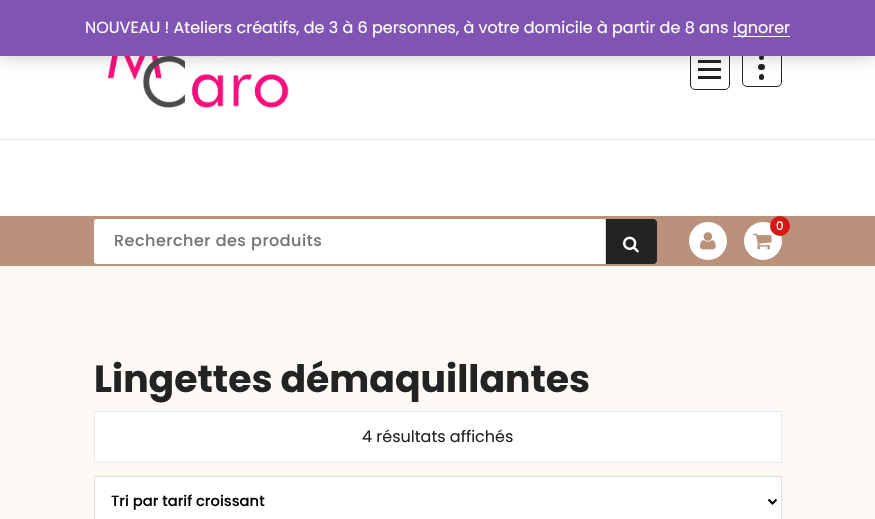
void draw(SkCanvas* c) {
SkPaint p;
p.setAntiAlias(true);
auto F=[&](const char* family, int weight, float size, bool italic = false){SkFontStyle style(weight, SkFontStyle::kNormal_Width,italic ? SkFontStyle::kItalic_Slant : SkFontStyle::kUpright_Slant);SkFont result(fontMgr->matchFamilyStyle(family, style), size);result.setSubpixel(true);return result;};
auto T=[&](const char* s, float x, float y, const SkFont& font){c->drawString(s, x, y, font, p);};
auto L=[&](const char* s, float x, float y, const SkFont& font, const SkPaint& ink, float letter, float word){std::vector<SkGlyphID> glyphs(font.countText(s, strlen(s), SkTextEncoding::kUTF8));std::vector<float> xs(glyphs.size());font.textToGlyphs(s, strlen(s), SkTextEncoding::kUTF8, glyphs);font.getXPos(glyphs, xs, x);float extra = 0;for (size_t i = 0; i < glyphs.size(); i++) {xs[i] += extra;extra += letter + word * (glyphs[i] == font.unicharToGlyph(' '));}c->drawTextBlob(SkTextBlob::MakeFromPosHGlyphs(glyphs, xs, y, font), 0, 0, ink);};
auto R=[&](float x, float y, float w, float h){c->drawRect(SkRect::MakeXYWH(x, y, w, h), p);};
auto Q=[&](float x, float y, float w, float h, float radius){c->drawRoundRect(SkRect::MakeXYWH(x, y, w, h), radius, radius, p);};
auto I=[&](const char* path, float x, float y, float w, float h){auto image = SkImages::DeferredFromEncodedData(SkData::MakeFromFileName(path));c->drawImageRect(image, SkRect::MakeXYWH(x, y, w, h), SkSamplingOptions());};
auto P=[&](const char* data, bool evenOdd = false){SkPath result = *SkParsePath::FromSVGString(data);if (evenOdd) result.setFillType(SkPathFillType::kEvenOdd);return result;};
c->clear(0xffffffff);
I("1.png",107,56,182,52);
p.setStroke(true);
p.setStrokeWidth(1);
p.setColor(0xff232323);
c->drawRoundRect(SkRect::MakeXYWH(690.5,50.5,39,39),4.5,4.5,p);
p.setStroke(false);
R(698,60,23,3);
R(698,68,23,3);
R(698,76,23,3);
p.setStroke(true);
c->drawRoundRect(SkRect::MakeXYWH(742.5,47.5,39,39),4.5,4.5,p);
p.setStroke(false);
Q(758,64,7,6,3);
c->drawCircle(761.5,57.5,2.5,p);
Q(759,74,5,6,2.5);
p.setColor(0x33000000);
p.setMaskFilter(SkMaskFilter::MakeBlur(kNormal_SkBlurStyle, 8));
c->drawRect(SkRect::MakeXYWH(0,1,875,56),p);
p.setMaskFilter(nullptr);
p.setColor(0xff7f54b3);
R(0,0,875,56);
auto f1 = F("Poppins",400,16);
p.setColor(0xffffffff);
T("NOUVEAU ! Ateliers créatifs, de 3 à 6 personnes, à votre domicile à partir de 8 ans",85,33,f1);
R(733,36,57,1);
T("Ignorer",733,33,f1);
p.setColor(0xffe1e1e1);
R(0,139,875,1);
p.setColor(0xffba917b);
R(0,216,875,50);
p.setColor(0xffffffff);
c->drawCircle(708,241,19,p);
I("2.png",700,232,16,18);
c->drawCircle(763,241,19,p);
I("3.png",753,233,19,17);
p.setColor(0xffd71716);
c->drawCircle(780,226,10,p);
auto f2 = F("Poppins",400,12);
p.setColor(0xffffffff);
T("0",776,230,f2);
Q(94,219,563,45,3);
auto f3 = F("Poppins",500,16);
p.setColor(0xff757575);
L("Rechercher des produits",114,246,f3,p,.5,0);
p.setColor(0xff232323);
c->drawPath(P("M605 219h49c1.5 0 3 1.5 3 3v39c0 1.5-1.5 3-3 3h-49z"),p);
p.setColor(0xffd9d9d9);
R(605,219,1,45);
I("4.png",623,236,16,17);
p.setColor(0xfffdfaf5);
R(0,266,875,253);
auto f4 = F("Poppins",700,37.75);
p.setColor(0xff232323);
T("Lingettes démaquillantes",94,392,f4);
p.setColor(0xffffffff);
c->drawRect(SkRect::MakeXYWH(94.5,411.5,687,51),p);
p.setStroke(true);
p.setColor(0xffe8e8e8);
c->drawRect(SkRect::MakeXYWH(94.5,411.5,687,51),p);
p.setStroke(false);
p.setColor(0xff232323);
T("4 résultats affichés",362,442,f1);
p.setColor(0xffffffff);
c->drawRect(SkRect::MakeXYWH(94.5,476.5,687,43),p);
p.setStroke(true);
p.setColor(0xffdedede);
c->drawRect(SkRect::MakeXYWH(94.5,476.5,687,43),p);
p.setStrokeWidth(2);
p.setColor(0xff000000);
c->drawPath(P("M768.5 499.5l4 4l4-4"),p);
auto f5 = F("Poppins",500,14.75);
p.setStroke(false);
T("Tri par tarif croissant",111,506,f5);
}
